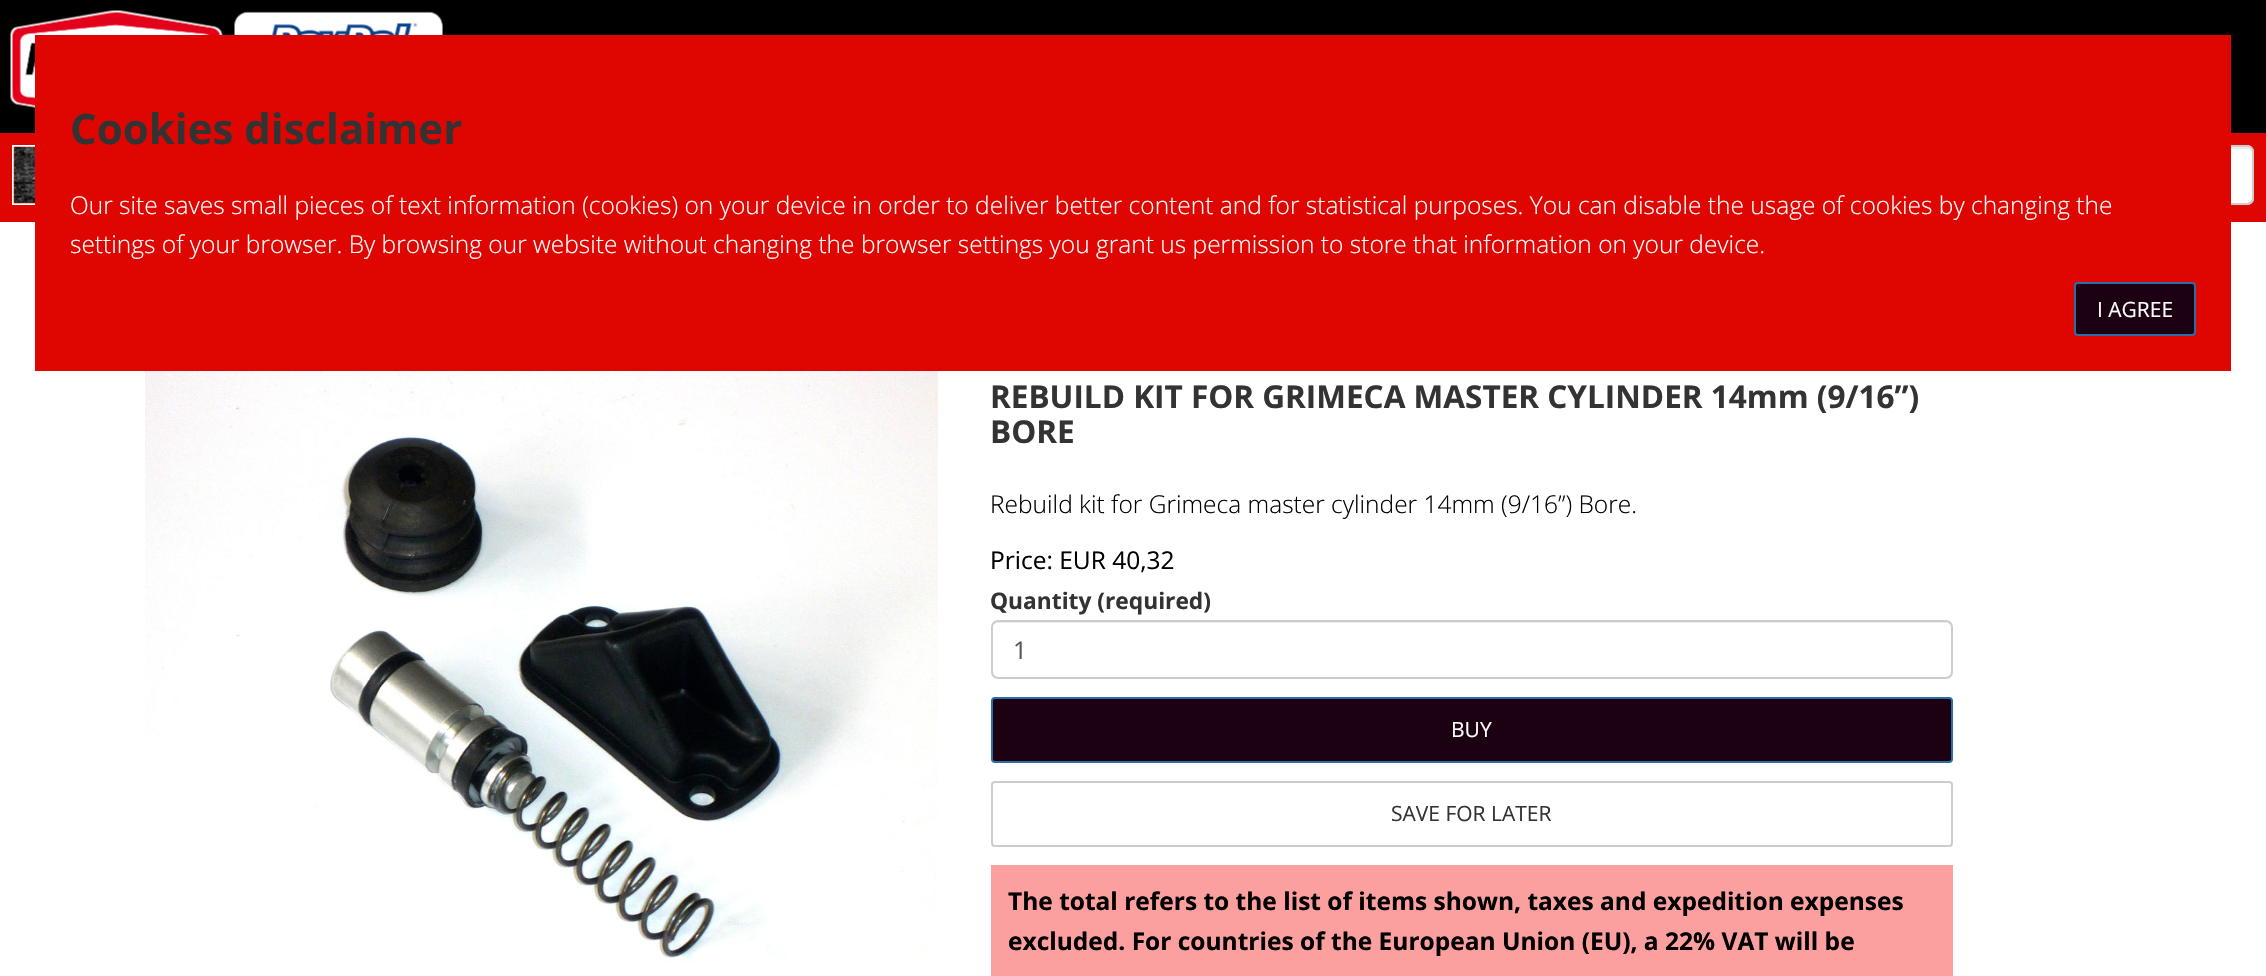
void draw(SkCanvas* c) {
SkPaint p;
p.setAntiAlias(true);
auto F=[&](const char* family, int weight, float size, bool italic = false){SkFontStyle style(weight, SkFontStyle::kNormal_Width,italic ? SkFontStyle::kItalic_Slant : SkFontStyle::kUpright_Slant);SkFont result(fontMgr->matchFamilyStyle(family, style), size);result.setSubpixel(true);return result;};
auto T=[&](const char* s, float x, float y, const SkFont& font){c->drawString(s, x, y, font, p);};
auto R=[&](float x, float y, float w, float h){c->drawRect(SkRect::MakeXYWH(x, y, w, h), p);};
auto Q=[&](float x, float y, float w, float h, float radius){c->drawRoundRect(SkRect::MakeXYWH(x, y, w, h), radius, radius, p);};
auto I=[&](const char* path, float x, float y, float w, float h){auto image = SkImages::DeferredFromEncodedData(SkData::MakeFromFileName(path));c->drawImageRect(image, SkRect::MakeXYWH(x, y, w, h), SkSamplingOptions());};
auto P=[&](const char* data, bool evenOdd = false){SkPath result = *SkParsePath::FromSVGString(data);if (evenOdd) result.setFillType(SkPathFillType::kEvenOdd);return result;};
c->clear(0xffffffff);
p.setColor(0xff000000);
R(0,0,2266,133);
I("1.png",10,10,213,98);
I("2.png",234,11,209,24);
p.setColor(0xffdf0500);
R(0,133,2266,89);
p.setStroke(true);
p.setStrokeWidth(2);
p.setColor(0xffffffff);
c->drawRect(SkRect::MakeXYWH(13,146,86,58),p);
I("3.png",13,146,22,58);
p.setStroke(false);
Q(1899,145,355,60,7);
p.setColor(0xffececec);
c->drawPath(P("M1906 149h341c3 0 5 2 5 5c0-3-1-7-5-7h-341c-2 0-5 2-5 4c1-1 3-2 5-2z"),p);
p.setStroke(true);
p.setColor(0xffcccccc);
c->drawRoundRect(SkRect::MakeXYWH(1900,146,353,58),6,6,p);
p.setStroke(false);
p.setColor(0xffdf0500);
R(35,35,2196,336);
auto f1 = F("Open Sans",700,42);
p.setColor(0xff333333);
T("Cookies disclaimer",70,144,f1);
auto f2 = F("Open Sans",300,24.5);
p.setColor(0xffffffff);
T("Our site saves small pieces of text information (cookies) on your device in order to deliver better content and for statistical purposes. You can disable the usage of cookies by changing the",70,214,f2);
T("settings of your browser. By browsing our website without changing the browser settings you grant us permission to store that information on your device.",70,253,f2);
p.setColor(0xff1c0113);
c->drawRoundRect(SkRect::MakeXYWH(2075,283,120,52),3,3,p);
p.setStroke(true);
p.setColor(0xff2e6da4);
c->drawRoundRect(SkRect::MakeXYWH(2075,283,120,52),3,3,p);
auto f3 = F("Open Sans",400,21);
p.setStroke(false);
p.setColor(0xffffffff);
T("I AGREE",2097,317,f3);
I("4.png",145,371,793,591);
auto f4 = F("Open Sans",700,31.5);
p.setColor(0xff333333);
T("REBUILD KIT FOR GRIMECA MASTER CYLINDER 14mm (9/16”)",990,408,f4);
T("BORE",990,443,f4);
p.setColor(0xff000000);
T("Rebuild kit for Grimeca master cylinder 14mm (9/16”) Bore.",990,513,f2);
auto f5 = F("Open Sans",400,24.5);
T("Price: EUR 40,32",990,569,f5);
auto f6 = F("Open Sans",700,22.75);
p.setColor(0xff333333);
T("Quantity (required)",990,609,f6);
p.setColor(0xffececec);
c->drawPath(P("M998 623h948c3 0 5 2 5 5v-2c0-3-2-5-5-5h-949c-3 0-5 2-5 5v2c0-3 3-5 6-5z"),p);
p.setStroke(true);
p.setColor(0xffcccccc);
c->drawRoundRect(SkRect::MakeXYWH(992,621,960,57),6,6,p);
p.setStroke(false);
p.setColor(0xff555555);
T("1",1013,659,f5);
p.setColor(0xff1c0113);
c->drawRoundRect(SkRect::MakeXYWH(992,698,960,64),3,3,p);
p.setStroke(true);
p.setColor(0xff2e6da4);
c->drawRoundRect(SkRect::MakeXYWH(992,698,960,64),3,3,p);
p.setStroke(false);
p.setColor(0xffffffff);
T("BUY",1451,737,f3);
p.setStroke(true);
p.setColor(0xffcccccc);
c->drawRoundRect(SkRect::MakeXYWH(992,782,960,64),3,3,p);
p.setStroke(false);
p.setColor(0xff333333);
T("SAVE FOR LATER",1391,821,f3);
p.setColor(0xfffc9f9f);
R(991,865,962,111);
auto f7 = F("Open Sans",700,24.5);
p.setColor(0xff000000);
T("The total refers to the list of items shown, taxes and expedition expenses",1008,910,f7);
T("excluded. For countries of the European Union (EU), a 22% VAT will be",1008,950,f7);
}
